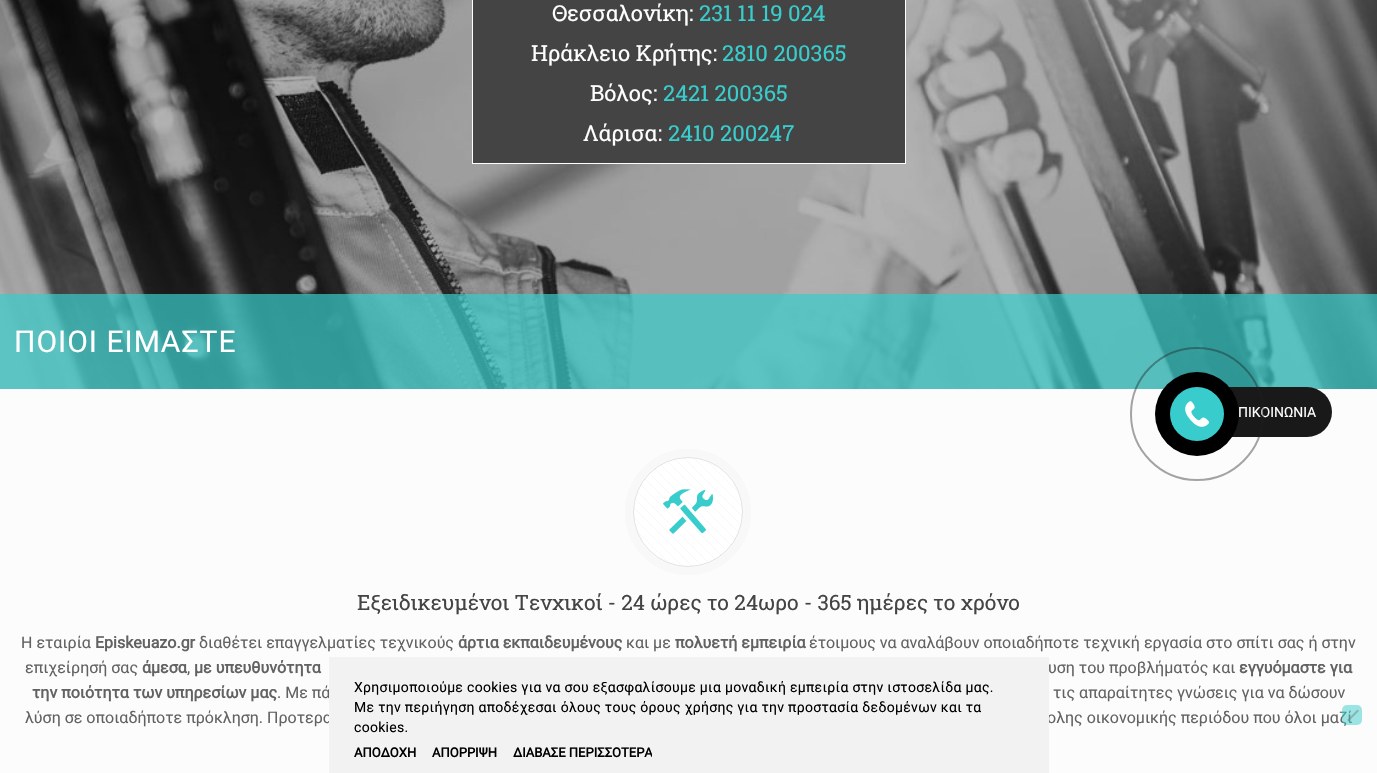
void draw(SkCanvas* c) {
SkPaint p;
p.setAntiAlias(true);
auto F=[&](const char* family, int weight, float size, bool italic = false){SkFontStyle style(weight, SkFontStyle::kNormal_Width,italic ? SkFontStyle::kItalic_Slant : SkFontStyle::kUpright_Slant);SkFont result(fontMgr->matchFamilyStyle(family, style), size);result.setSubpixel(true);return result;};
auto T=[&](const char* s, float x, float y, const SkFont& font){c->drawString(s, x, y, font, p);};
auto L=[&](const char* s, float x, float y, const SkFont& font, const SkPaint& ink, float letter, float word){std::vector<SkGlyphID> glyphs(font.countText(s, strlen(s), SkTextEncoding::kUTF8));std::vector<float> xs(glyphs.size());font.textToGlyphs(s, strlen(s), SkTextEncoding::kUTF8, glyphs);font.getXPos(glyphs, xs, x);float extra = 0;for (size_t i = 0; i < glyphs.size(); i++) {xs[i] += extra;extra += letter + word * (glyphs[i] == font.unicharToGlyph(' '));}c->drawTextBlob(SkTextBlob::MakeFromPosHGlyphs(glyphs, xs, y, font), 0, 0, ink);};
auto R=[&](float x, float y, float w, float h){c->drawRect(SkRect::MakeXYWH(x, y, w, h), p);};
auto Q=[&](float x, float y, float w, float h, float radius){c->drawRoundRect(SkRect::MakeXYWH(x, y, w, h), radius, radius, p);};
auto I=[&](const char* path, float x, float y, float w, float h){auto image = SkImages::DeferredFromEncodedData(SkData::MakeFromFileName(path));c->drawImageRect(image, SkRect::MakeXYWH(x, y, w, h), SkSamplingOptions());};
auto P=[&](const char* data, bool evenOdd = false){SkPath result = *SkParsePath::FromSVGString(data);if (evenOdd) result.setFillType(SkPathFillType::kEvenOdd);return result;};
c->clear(0xfffcfcfc);
I("1.png",0,0,1377,389);
p.setColor(0xff444444);
R(473,0,432,163);
p.setColor(0xffffffff);
R(905,0,1,164);
R(472,163,434,1);
R(472,0,1,164);
auto f1 = F("Roboto Slab",400,22);
T("Θεσσαλονίκη:",552,21,f1);
p.setColor(0xff39cccc);
T("231 11 19 024",699,21,f1);
p.setColor(0xffffffff);
T("Ηράκλειο Κρήτης:",531,61,f1);
p.setColor(0xff39cccc);
T("2810 200365",722,61,f1);
p.setColor(0xffffffff);
T("Βόλος:",590,101,f1);
p.setColor(0xff39cccc);
T("2421 200365",663,101,f1);
p.setColor(0xffffffff);
T("Λάρισα:",583,141,f1);
p.setColor(0xff39cccc);
T("2410 200247",668,141,f1);
p.setColor(0xb339cccc);
R(0,294,1377,95);
auto f2 = F("Roboto",400,30);
p.setColor(0xffffffff);
L("ΠΟΙΟΙ ΕΙΜΑΣΤΕ",14,352,f2,p,1,0);
c->drawCircle(688,512,63,p);
I("2.png",625,449,126,126);
p.setStroke(true);
p.setStrokeWidth(8);
p.setColor(0xfff8f8f8);
c->drawCircle(688,512,59,p);
p.setStrokeWidth(1);
p.setColor(0xffe2e2e2);
c->drawCircle(688,512,54.5,p);
I("3.png",663,489,50,45);
auto f3 = F("Roboto Slab",400,21);
p.setStroke(false);
p.setColor(0xff444444);
T("Εξειδικευμένοι Τενχικοί - 24 ώρες το 24ωρο - 365 ημέρες το χρόνο",357,610,f3);
auto f4 = F("Roboto",400,16);
p.setColor(0xff626262);
T("Η εταιρία",21,648,f4);
auto f5 = F("Roboto",700,16);
T("Episkeuazo.gr",95,648,f5);
T("διαθέτει επαγγελματίες τεχνικούς",199,648,f4);
T("άρτια εκπαιδευμένους",458,648,f5);
T("και με",626,648,f4);
T("πολυετή εμπειρία",675,648,f5);
T("έτοιμους να αναλάβουν οποιαδήποτε τεχνική εργασία στο σπίτι σας ή στην",809,648,f4);
T("επιχείρησή σας",25,673,f4);
T("άμεσα",142,673,f5);
T(",",187,673,f4);
T("με υπευθυνότητα",194,673,f5);
T("υση του προβλήματός και",1048,673,f4);
T("εγγυόμαστε για",1239,673,f5);
T("την ποιότητα των υπηρεσίων μας",32,698,f5);
T(". Με πά",277,698,f4);
T("τις απαραίτητες γνώσεις για να δώσουν",1053,698,f4);
T("λύση σε οποιαδήποτε πρόκληση. Προτερα",25,723,f4);
T("ολης οικονομικής περιόδου που όλοι μαζί",1047,723,f4);
p.setColor(0xff1a1919);
Q(1170,387,162,50,25);
auto f6 = F("Roboto",400,14);
p.setColor(0xffffffff);
T("ΠΙΚΟΙΝΩΝΙΑ",1238,417,f6);
p.setStroke(true);
p.setStrokeWidth(2);
p.setColor(0x661e1e1e);
c->drawCircle(1197,414,66,p);
p.setStroke(false);
p.setColor(0xff000000);
c->drawCircle(1197,414,42,p);
p.setColor(0xff39cccc);
c->drawCircle(1197,414,27,p);
I("4.png",1185,401,24,26);
p.setColor(0xfff2f2f2);
R(329,657,720,116);
p.setColor(0xff000000);
L("Χρησιμοποιούμε cookies για να σου εξασφαλίσουμε μια μοναδική εμπειρία στην ιστοσελίδα μας.",354,692,f6,p,.3,0);
L("Με την περιήγηση αποδέχεσαι όλους τους όρους χρήσης για την προστασία δεδομένων και τα",354,712,f6,p,.3,0);
L("cookies.",354,732,f6,p,.3,0);
p.setColor(0x8039cccc);
Q(1342,705,20,20,5);
p.setColor(0x80808080);
c->drawPath(P("M1357.5 709.5l1.5 1.5l-10.5 10.5l-1.5-1.5z"),p);
auto f7 = F("Roboto",700,13);
p.setColor(0xff000000);
T("ΑΠΟΔΟΧΗ",354,757,f7);
T("ΑΠΟΡΡΙΨΗ",432,757,f7);
c->save();
c->clipPath(P("M518 745h129c3 0 5 2 5 5v5c0 3-2 5-5 5h-129c-3 0-5-2-5-5v-5c0-3 2-5 5-5z"),true);
T("ΔΙΑΒΑΣΕ ΠΕΡΙΣΣΟΤΕΡΑ",513,757,f7);
c->restore();
}
